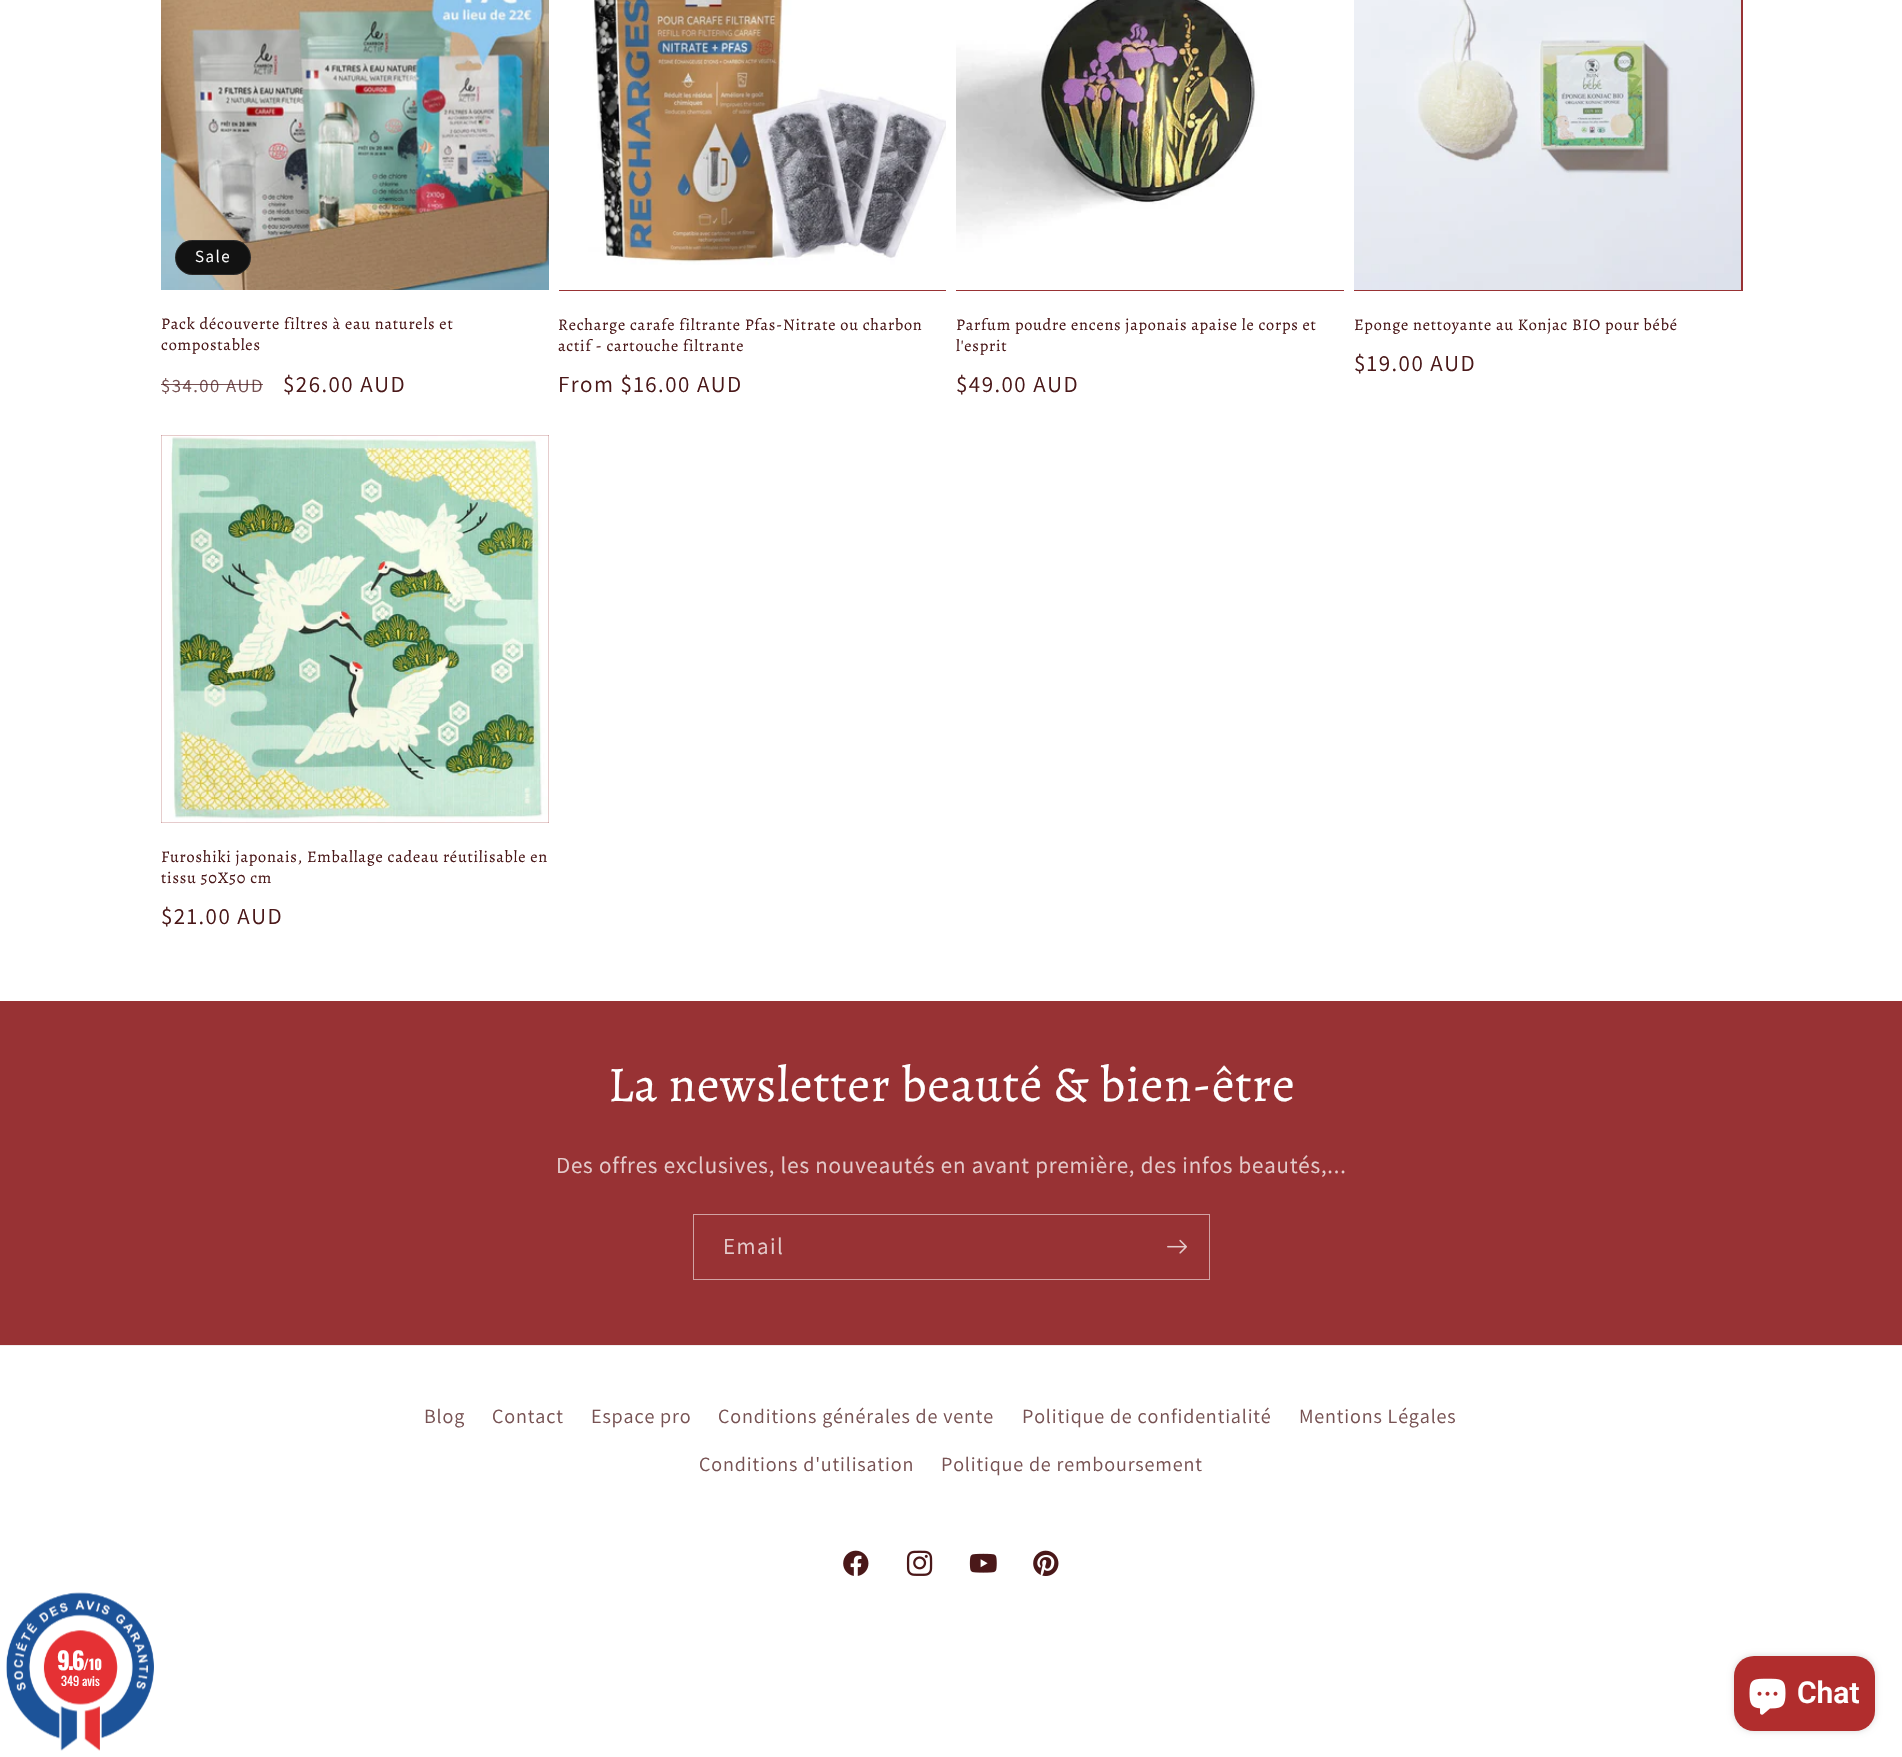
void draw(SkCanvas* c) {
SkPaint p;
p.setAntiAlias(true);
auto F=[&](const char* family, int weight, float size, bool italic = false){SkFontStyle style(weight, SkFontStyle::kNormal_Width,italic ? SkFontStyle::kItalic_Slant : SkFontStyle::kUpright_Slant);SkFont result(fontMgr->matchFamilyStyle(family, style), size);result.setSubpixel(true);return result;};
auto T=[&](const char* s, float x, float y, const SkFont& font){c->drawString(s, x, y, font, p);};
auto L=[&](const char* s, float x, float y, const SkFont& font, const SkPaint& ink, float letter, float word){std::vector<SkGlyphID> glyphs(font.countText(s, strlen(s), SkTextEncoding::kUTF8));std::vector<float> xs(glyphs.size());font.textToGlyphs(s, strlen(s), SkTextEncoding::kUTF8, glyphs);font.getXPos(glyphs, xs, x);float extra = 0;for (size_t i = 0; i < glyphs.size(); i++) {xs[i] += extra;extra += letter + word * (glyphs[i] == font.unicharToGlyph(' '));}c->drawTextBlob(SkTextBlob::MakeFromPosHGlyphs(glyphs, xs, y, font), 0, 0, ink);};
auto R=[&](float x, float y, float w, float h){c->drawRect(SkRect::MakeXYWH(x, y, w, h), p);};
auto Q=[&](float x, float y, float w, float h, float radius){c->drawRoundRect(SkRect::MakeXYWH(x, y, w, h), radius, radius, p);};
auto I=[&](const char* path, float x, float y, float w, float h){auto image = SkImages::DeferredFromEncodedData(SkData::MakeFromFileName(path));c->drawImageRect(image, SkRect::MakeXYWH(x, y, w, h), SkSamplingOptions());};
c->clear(0xffffffff);
I("1.png",161,0,388,290);
p.setColor(0xff121212);
Q(175,240,76,35,17.5);
p.setStroke(true);
p.setStrokeWidth(1);
p.setColor(0x1affffff);
c->drawRoundRect(SkRect::MakeXYWH(175.5,240.5,75,34),17,17,p);
auto f1 = F("Assistant",400,17);
p.setStroke(false);
p.setColor(0xffffffff);
L("Sale",195,262,f1,p,1.5,0);
auto f2 = F("Alegreya",400,16.25);
p.setColor(0xff4a1819);
L("Pack découverte filtres à eau naturels et",161,329,f2,p,.75,0);
L("compostables",161,350,f2,p,.75,0);
auto f3 = F("Assistant",400,18.75);
p.setColor(0xff775253);
L("$34.00 AUD",161,392,f3,p,1.5,0);
p.setColor(0xbf4a1819);
R(161,384,102,1);
auto f4 = F("Assistant",400,23);
p.setColor(0xff4a1819);
L("$26.00 AUD",283,392,f4,p,1.5,0);
p.setColor(0xff983234);
R(559,290,387,1);
I("2.png",559,0,387,290);
p.setColor(0xff4a1819);
L("Recharge carafe filtrante Pfas-Nitrate ou charbon",558,330,f2,p,.75,0);
L("actif - cartouche filtrante",558,351,f2,p,.75,0);
L("From $16.00 AUD",558,392,f4,p,1.5,0);
p.setColor(0xff983234);
R(956,290,388,1);
I("3.png",956,0,388,290);
p.setColor(0xff4a1819);
L("Parfum poudre encens japonais apaise le corps et",956,330,f2,p,.75,0);
L("l'esprit",956,351,f2,p,.75,0);
L("$49.00 AUD",956,392,f4,p,1.5,0);
p.setColor(0xff983234);
R(1354,0,389,291);
I("4.png",1354,0,387,290);
p.setColor(0xff4a1819);
L("Eponge nettoyante au Konjac BIO pour bébé",1354,330,f2,p,.75,0);
L("$19.00 AUD",1354,371,f4,p,1.5,0);
p.setColor(0xff983234);
R(161,435,388,388);
I("5.png",161,435,388,388);
p.setColor(0xff4a1819);
L("Furoshiki japonais, Emballage cadeau réutilisable en",161,862,f2,p,.75,0);
L("tissu 50X50 cm",161,883,f2,p,.75,0);
L("$21.00 AUD",161,924,f4,p,1.5,0);
p.setColor(0xff983234);
R(0,1001,1902,344);
auto f5 = F("Alegreya",400,50);
p.setColor(0xffffffff);
L("La newsletter beauté & bien-être",608,1101,f5,p,.75,0);
p.setColor(0xffe5cccc);
L("Des offres exclusives, les nouveautés en avant première, des infos beautés,...",556,1173,f4,p,.85,0);
p.setStroke(true);
p.setColor(0xffd1a3a4);
c->drawRect(SkRect::MakeXYWH(693.5,1214.5,516,65),p);
p.setStroke(false);
p.setColor(0xffe5cccc);
L("Email",723,1254,f4,p,1.5,0);
I("6.png",1167,1239,20,15);
p.setColor(0xfff1eded);
R(0,1345,1902,1);
auto f6 = F("Assistant",400,20.1);
p.setColor(0xff775253);
L("Blog",424,1423,f6,p,.85,0);
L("Contact",492,1423,f6,p,.85,0);
L("Espace pro",591,1423,f6,p,.85,0);
L("Conditions générales de vente",718,1423,f6,p,.85,0);
L("Politique de confidentialité",1022,1423,f6,p,.85,0);
L("Mentions Légales",1299,1423,f6,p,.85,0);
L("Conditions d'utilisation",699,1471,f6,p,.85,0);
L("Politique de remboursement",941,1471,f6,p,.85,0);
I("7.png",843,1550,26,26);
I("8.png",906,1550,27,26);
I("9.png",969,1553,28,20);
I("10.png",1033,1550,26,26);
I("11.png",6,1592,148,159);
auto f7 = F("Oswald",700,24);
p.setColor(0xffffffff);
L("9.6",57,1670,f7,p,-2,0);
auto f8 = F("Oswald",700,14);
T("/10",83,1670,f8);
auto f9 = F("Oswald",400,12.5);
T("349 avis",61,1686,f9);
p.setColor(0x26000000);
p.setMaskFilter(SkMaskFilter::MakeBlur(kNormal_SkBlurStyle, 3));
c->drawRoundRect(SkRect::MakeXYWH(1734,1656,141,75),20,20,p);
p.setMaskFilter(nullptr);
p.setColor(0xffb12d2d);
Q(1734,1656,141,75,20);
I("12.png",1749,1678,37,37);
auto f10 = F("Roboto",600,30);
p.setColor(0xffffffff);
T("Chat",1797,1703,f10);
}
